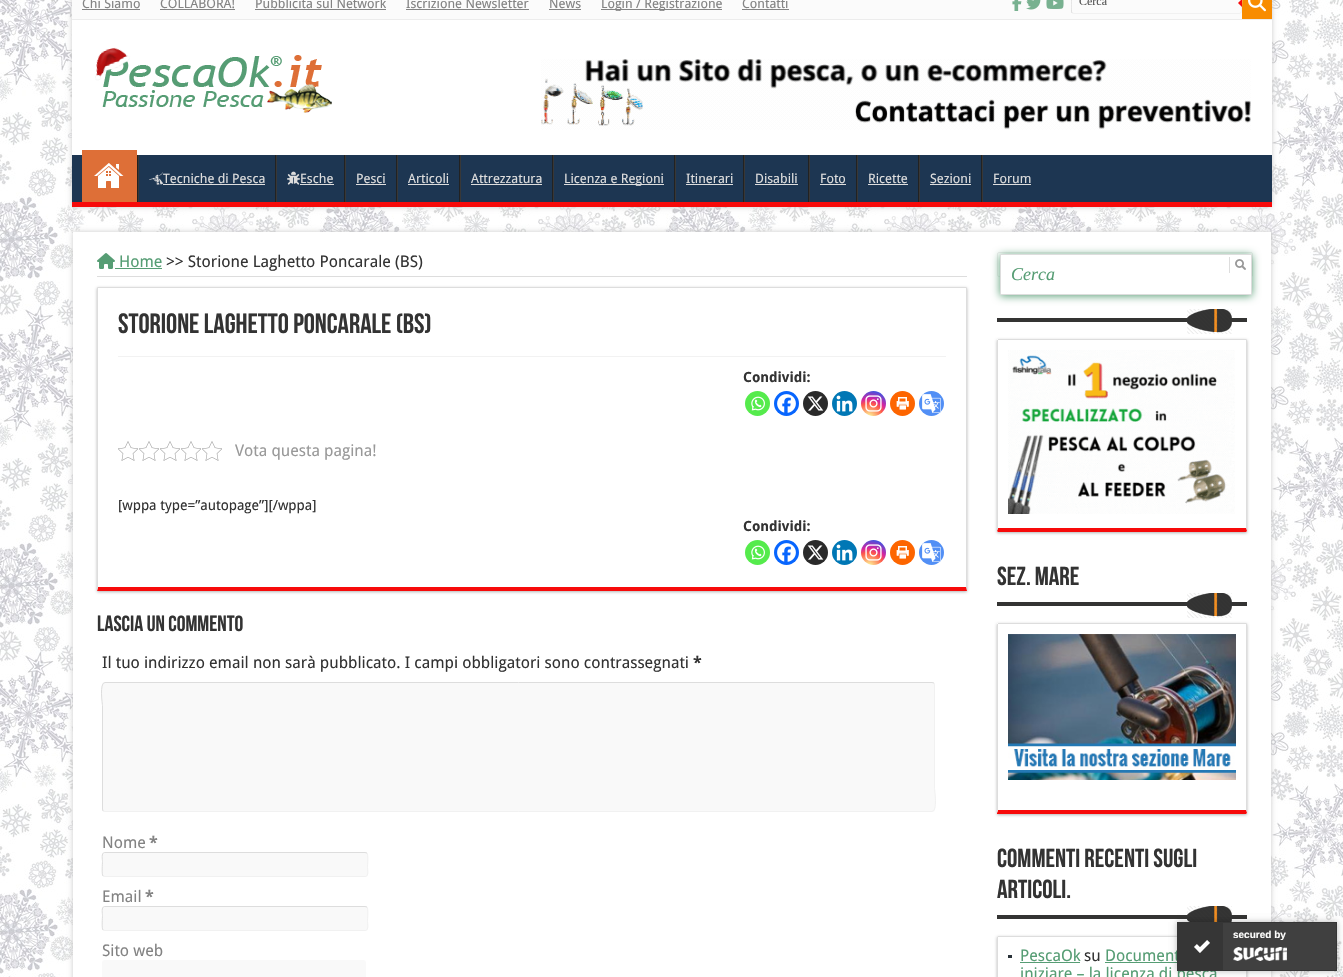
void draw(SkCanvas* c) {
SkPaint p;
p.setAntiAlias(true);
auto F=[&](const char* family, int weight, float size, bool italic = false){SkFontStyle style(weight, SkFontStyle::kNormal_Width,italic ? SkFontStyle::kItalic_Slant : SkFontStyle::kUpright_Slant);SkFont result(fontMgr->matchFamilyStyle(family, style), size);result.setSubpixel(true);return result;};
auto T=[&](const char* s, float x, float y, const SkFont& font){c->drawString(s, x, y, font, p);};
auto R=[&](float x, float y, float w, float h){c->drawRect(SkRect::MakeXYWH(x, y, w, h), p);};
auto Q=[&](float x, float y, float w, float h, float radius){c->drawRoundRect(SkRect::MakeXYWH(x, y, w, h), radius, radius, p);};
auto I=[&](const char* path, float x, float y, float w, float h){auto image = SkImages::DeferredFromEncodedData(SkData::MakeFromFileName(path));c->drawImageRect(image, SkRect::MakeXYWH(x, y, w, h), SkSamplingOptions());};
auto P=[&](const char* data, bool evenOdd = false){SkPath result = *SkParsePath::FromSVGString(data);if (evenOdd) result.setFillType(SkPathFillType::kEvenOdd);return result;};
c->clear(0xffffffff);
I("1.png",0,0,1343,977);
p.setColor(0xffcacaca);
p.setMaskFilter(SkMaskFilter::MakeBlur(kNormal_SkBlurStyle, 2.5));
c->drawRect(SkRect::MakeXYWH(72,-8,1200,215),p);
p.setMaskFilter(nullptr);
p.setColor(0xffffffff);
R(72,20,1200,135);
p.setColor(0xfffbfbfb);
R(72,0,1170,19);
p.setColor(0xffececec);
R(72,19,1200,1);
auto f1 = F("Droid Sans",400,13);
p.setColor(0xff838383);
T("Chi Siamo",82,8,f1);
R(82,9,58,1);
T("COLLABORA!",160,8,f1);
R(160,9,75,1);
T("Pubblicità sul Network",255,8,f1);
R(255,9,131,1);
T("Iscrizione Newsletter",406,8,f1);
R(406,9,123,1);
T("News",549,8,f1);
R(549,9,32,1);
R(601,9,121,1);
T("Login / Registrazione",601,8,f1);
T("Contatti",742,8,f1);
R(742,9,47,1);
I("2.png",1012,0,10,11);
I("3.png",1026,0,15,10);
I("4.png",1046,0,18,9);
p.setColor(0xfff88c00);
R(1242,0,30,19);
p.setStroke(true);
p.setStrokeWidth(1);
p.setColor(0xfff1f1f1);
c->drawPath(P("M1241-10c1.5 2 .5 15 .5 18c0 2 .5 5.5-2.5 5.5h-165l-2-.5"),p);
c->save();
c->clipRect(SkRect::MakeXYWH(1071,0,201,19));
p.setColor(0xffdddddd);
c->drawPath(P("M1072 13c-1.5-2-.5-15-.5-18c0-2-.5-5.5 2.5-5.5h165l2 .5"),p);
c->restore();
auto f2 = F("Liberation Serif",400,12);
p.setStroke(false);
p.setColor(0xff515151);
T("Cerca",1079,5,f2);
I("5.png",1248,0,18,12);
p.setColor(0xfff70a0a);
c->drawPath(P("M1242-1v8l-4-4z"),p);
I("6.png",95,47,237,66);
I("7.png",541,59,710,71);
p.setColor(0xff1d3652);
R(72,155,1200,47);
p.setColor(0xfff70a0a);
R(72,202,1200,5);
p.setColor(0xffde6f37);
R(82,150,55,52);
I("8.png",94,163,30,25);
p.setColor(0xff222222);
R(137,155,1,47);
p.setColor(0xff383838);
R(138,155,1,47);
I("9.png",149,172,15,13);
p.setColor(0xffdddddd);
T("Tecniche di Pesca",163,183,f1);
R(163,184,102,1);
p.setColor(0xff222222);
R(275,155,1,47);
p.setColor(0xff383838);
R(276,155,1,47);
I("10.png",287,171,13,14);
p.setColor(0xffdddddd);
T("Esche",300,183,f1);
R(300,184,34,1);
p.setColor(0xff222222);
R(344,155,1,47);
p.setColor(0xff383838);
R(345,155,1,47);
p.setColor(0xffdddddd);
T("Pesci",356,183,f1);
R(356,184,30,1);
p.setColor(0xff222222);
R(396,155,1,47);
p.setColor(0xff383838);
R(397,155,1,47);
p.setColor(0xffdddddd);
T("Articoli",408,183,f1);
R(408,184,41,1);
p.setColor(0xff222222);
R(459,155,1,47);
p.setColor(0xff383838);
R(460,155,1,47);
p.setColor(0xffdddddd);
T("Attrezzatura",471,183,f1);
R(471,184,71,1);
p.setColor(0xff222222);
R(552,155,1,47);
p.setColor(0xff383838);
R(553,155,1,47);
p.setColor(0xffdddddd);
R(564,184,100,1);
T("Licenza e Regioni",564,183,f1);
p.setColor(0xff222222);
R(674,155,1,47);
p.setColor(0xff383838);
R(675,155,1,47);
p.setColor(0xffdddddd);
T("Itinerari",686,183,f1);
R(686,184,47,1);
p.setColor(0xff222222);
R(743,155,1,47);
p.setColor(0xff383838);
R(744,155,1,47);
p.setColor(0xffdddddd);
T("Disabili",755,183,f1);
R(755,184,43,1);
p.setColor(0xff222222);
R(808,155,1,47);
p.setColor(0xff383838);
R(809,155,1,47);
p.setColor(0xffdddddd);
T("Foto",820,183,f1);
R(820,184,26,1);
p.setColor(0xff222222);
R(856,155,1,47);
p.setColor(0xff383838);
R(857,155,1,47);
p.setColor(0xffdddddd);
T("Ricette",868,183,f1);
R(868,184,40,1);
p.setColor(0xff222222);
R(918,155,1,47);
p.setColor(0xff383838);
R(919,155,1,47);
p.setColor(0xffdddddd);
T("Sezioni",930,183,f1);
R(930,184,41,1);
p.setColor(0xff222222);
R(981,155,1,47);
p.setColor(0xff383838);
R(982,155,1,47);
p.setColor(0xffdddddd);
T("Forum",993,183,f1);
R(993,184,38,1);
p.setColor(0xffcacaca);
p.setMaskFilter(SkMaskFilter::MakeBlur(kNormal_SkBlurStyle, 2.5));
c->drawRect(SkRect::MakeXYWH(73,232,1198,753),p);
p.setMaskFilter(nullptr);
p.setColor(0xffffffff);
R(73,232,1198,745);
p.setColor(0xffdddddd);
R(97,276,870,1);
I("11.png",97,253,18,16);
auto f3 = F("Droid Sans",400,16);
p.setColor(0xff569d74);
T("Home",119,267,f3);
R(115,268,47,1);
p.setColor(0xff333333);
T(">> Storione Laghetto Poncarale (BS)",166,267,f3);
c->save();
c->clipPath(P("M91 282h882v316h-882zm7 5h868c.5 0 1 .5 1 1v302c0 .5-.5 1-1 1h-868c-.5 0-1-.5-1-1v-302c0-.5 .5-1 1-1z",true),true);
p.setColor(0xffb5b5b5);
p.setMaskFilter(SkMaskFilter::MakeBlur(kNormal_SkBlurStyle, 1.5));
c->drawRoundRect(SkRect::MakeXYWH(97,288,870,304),1,1,p);
p.setMaskFilter(nullptr);
c->restore();
p.setColor(0xffdddddd);
c->drawPath(P("M98 287h-1l1 1h868l1-1h-1z"),p);
c->drawPath(P("M967 590v-303l-1 1v299l1 4z"),p);
p.setColor(0xfff70a0a);
c->drawPath(P("M98 591h869l-1-4h-868l-1 4z"),p);
p.setColor(0xffdddddd);
c->drawPath(P("M98 288l-1-1v304l1-4z"),p);
auto f4 = F("Bebas Neue",400,28);
p.setColor(0xff333333);
T("Storione Laghetto Poncarale (BS)",118,333,f4);
p.setColor(0xfff2f2f2);
R(118,356,828,1);
auto f5 = F("Droid Sans",700,14);
p.setColor(0xff333333);
T("Condividi:",743,382,f5);
p.setColor(0xff55eb4c);
c->drawCircle(757.5,403.5,12.5,p);
I("12.png",751,396,14,15);
p.setColor(0xff0765fe);
c->drawCircle(786.5,403.5,12.5,p);
I("13.png",777,394,19,19);
p.setColor(0xff2a2a2a);
c->drawCircle(815.5,403.5,12.5,p);
I("14.png",807,396,17,15);
p.setColor(0xff0077b5);
c->drawCircle(844.5,403.5,12.5,p);
I("15.png",836,395,17,17);
{
const SkColor colors[] = {0xfffdf497,0xfffdf497,0xfffd5949,0xffd6249f,0xff285aeb};
const float stops[] = {0,.05,.45,.6,.9};
p.setShader(SkGradientShader::MakeRadial({869,418}, 32, colors, stops, 5, SkTileMode::kClamp));
p.setAlpha(255);
}
c->drawCircle(873.5,403.5,12.5,p);
I("16.png",865,395,17,17);
p.setShader(nullptr);
p.setColor(0xfffd6500);
c->drawCircle(902.5,403.5,12.5,p);
I("17.png",896,397,13,13);
p.setColor(0xff528ff5);
c->drawCircle(931.5,403.5,12.5,p);
I("18.png",922,394,19,19);
I("19.png",118,441,20,20);
I("19.png",139,441,20,20);
I("19.png",160,441,20,20);
I("19.png",181,441,20,20);
I("19.png",202,441,20,20);
p.setColor(0xff999999);
T("Vota questa pagina!",235,456,f3);
auto f6 = F("Droid Sans",400,14);
p.setColor(0xff333333);
T("[wppa type=”autopage”][/wppa]",118,510,f6);
T("Condividi:",743,531,f5);
p.setColor(0xff55eb4c);
c->drawCircle(757.5,552.5,12.5,p);
I("12.png",751,545,14,15);
p.setColor(0xff0765fe);
c->drawCircle(786.5,552.5,12.5,p);
I("13.png",777,543,19,19);
p.setColor(0xff2a2a2a);
c->drawCircle(815.5,552.5,12.5,p);
I("14.png",807,545,17,15);
p.setColor(0xff0077b5);
c->drawCircle(844.5,552.5,12.5,p);
I("15.png",836,544,17,17);
{
const SkColor colors[] = {0xfffdf497,0xfffdf497,0xfffd5949,0xffd6249f,0xff285aeb};
const float stops[] = {0,.05,.45,.6,.9};
p.setShader(SkGradientShader::MakeRadial({869,567}, 32, colors, stops, 5, SkTileMode::kClamp));
p.setAlpha(255);
}
c->drawCircle(873.5,552.5,12.5,p);
I("16.png",865,544,17,17);
p.setShader(nullptr);
p.setColor(0xfffd6500);
c->drawCircle(902.5,552.5,12.5,p);
I("17.png",896,546,13,13);
p.setColor(0xff528ff5);
c->drawCircle(931.5,552.5,12.5,p);
I("18.png",922,543,19,19);
auto f7 = F("Bebas Neue",400,22);
p.setColor(0xff333333);
T("Lascia un commento",97,631,f7);
T("Il tuo indirizzo email non sarà pubblicato. I campi obbligatori sono contrassegnati",102,668,f3);
auto f8 = F("Droid Sans",700,16);
T("*",693,668,f8);
p.setColor(0xfff9f9f9);
Q(102,682,833,130,3);
p.setStroke(true);
p.setColor(0xfff1f1f1);
c->drawPath(P("M934 683l.5 2v103.5c0 .5 3.5 23-2.5 23h-827l-2-.5"),p);
p.setColor(0xffdddddd);
c->drawPath(P("M103 811l-.5-2v-103.5c0-.5-3.5-23 2.5-23h827l2 .5"),p);
p.setStroke(false);
p.setColor(0xff838383);
T("Nome",102,848,f3);
T("*",149,848,f8);
p.setColor(0xfff9f9f9);
Q(102,852,266,25,3);
p.setStroke(true);
p.setColor(0xfff1f1f1);
c->drawPath(P("M367 853c1.5 2 .5 12 .5 14.5c0 2 1.5 8.5-2 9h-260.5l-2-.5"),p);
p.setColor(0xffdddddd);
c->drawPath(P("M103 876c-1.5-2-.5-12-.5-14.5c0-2-1.5-8.5 2-9h260.5l2 .5"),p);
p.setStroke(false);
p.setColor(0xff838383);
T("Email",102,902,f3);
T("*",145,902,f8);
p.setColor(0xfff9f9f9);
Q(102,906,266,25,3);
p.setStroke(true);
p.setColor(0xfff1f1f1);
c->drawPath(P("M367 907c1.5 2 .5 12 .5 14.5c0 2 1.5 8.5-2 9h-260.5l-2-.5"),p);
p.setColor(0xffdddddd);
c->drawPath(P("M103 930c-1.5-2-.5-12-.5-14.5c0-2-1.5-8.5 2-9h260.5l2 .5"),p);
p.setStroke(false);
p.setColor(0xff838383);
T("Sito web",102,956,f3);
p.setColor(0xfff9f9f9);
Q(102,960,264,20,3);
p.setStroke(true);
p.setColor(0xffeeeeee);
c->drawRoundRect(SkRect::MakeXYWH(997.5,252.5,255,24),1.5,1.5,p);
p.setStroke(false);
p.setColor(0xff343433);
R(997,318,250,4);
I("21.png",1187,309,45,25);
p.setColor(0xff569d74);
p.setMaskFilter(SkMaskFilter::MakeBlur(kNormal_SkBlurStyle, 4.5));
c->drawRoundRect(SkRect::MakeXYWH(1000,255,252,41),1,1,p);
p.setMaskFilter(nullptr);
p.setColor(0xffffffff);
c->drawRoundRect(SkRect::MakeXYWH(1000.5,254.5,251,40),.5,.5,p);
p.setStroke(true);
p.setColor(0xffdddddd);
c->drawRoundRect(SkRect::MakeXYWH(1000.5,254.5,251,40),.5,.5,p);
I("20.png",1229,257,17,16);
auto f9 = F("Liberation Serif",400,18,true);
p.setStroke(false);
p.setColor(0xff569d74);
T("Cerca",1011,280,f9);
c->save();
c->clipPath(P("M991 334h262v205h-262zm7 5h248c.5 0 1 .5 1 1v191c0 .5-.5 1-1 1h-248c-.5 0-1-.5-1-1v-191c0-.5 .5-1 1-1z",true),true);
p.setColor(0xffb5b5b5);
p.setMaskFilter(SkMaskFilter::MakeBlur(kNormal_SkBlurStyle, 1.5));
c->drawRoundRect(SkRect::MakeXYWH(997,340,250,193),1,1,p);
p.setMaskFilter(nullptr);
c->restore();
p.setColor(0xffdddddd);
c->drawPath(P("M998 339v1h248l1-1h-1z"),p);
c->drawPath(P("M1247 531v-191v-1l-1 1v188z"),p);
p.setColor(0xfff70a0a);
c->drawPath(P("M998 532l-1-1l1-3h248l1 3l-1 1z"),p);
p.setColor(0xffdddddd);
c->drawPath(P("M998 340h-1v191l1-3z"),p);
I("22.png",1008,350,227,164);
auto f10 = F("Bebas Neue",400,26);
p.setColor(0xff333333);
T("Sez. Mare",997,585,f10);
p.setColor(0xff343433);
R(997,602,250,4);
I("21.png",1187,593,45,25);
c->save();
c->clipPath(P("M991 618h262v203h-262zm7 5h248c.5 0 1 .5 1 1v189c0 .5-.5 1-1 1h-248c-.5 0-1-.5-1-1v-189c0-.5 .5-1 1-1z",true),true);
p.setColor(0xffb5b5b5);
p.setMaskFilter(SkMaskFilter::MakeBlur(kNormal_SkBlurStyle, 1.5));
c->drawRoundRect(SkRect::MakeXYWH(997,624,250,191),1,1,p);
p.setMaskFilter(nullptr);
c->restore();
p.setColor(0xffdddddd);
c->drawPath(P("M998 623v1h248l1-1h-1z"),p);
c->drawPath(P("M1247 813v-189v-1l-1 1v186z"),p);
p.setColor(0xfff70a0a);
c->drawPath(P("M997 814v-1l1-3h248l1 3l-1 1z"),p);
p.setColor(0xffdddddd);
c->drawPath(P("M998 624h-1v189l1-3z"),p);
I("23.png",1008,634,228,146);
p.setColor(0xff333333);
T("Commenti Recenti sugli",997,867,f10);
T("articoli.",997,898,f10);
p.setColor(0xff343433);
R(997,915,250,4);
I("24.png",1187,906,45,16);
c->save();
c->clipPath(P("M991 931h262v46h-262zm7 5h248c.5 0 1 .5 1 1v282c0 .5-.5 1-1 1h-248c-.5 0-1-.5-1-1v-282c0-.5 .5-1 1-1z",true),true);
p.setColor(0xffb5b5b5);
p.setMaskFilter(SkMaskFilter::MakeBlur(kNormal_SkBlurStyle, 1.5));
c->drawRoundRect(SkRect::MakeXYWH(997,937,250,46),1,1,p);
p.setMaskFilter(nullptr);
c->restore();
p.setColor(0xffdddddd);
c->drawPath(P("M998 936v1h248l1-1h-1z"),p);
c->drawPath(P("M1247 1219v-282v-1l-1 1v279z"),p);
c->drawPath(P("M998 937v-1l-1 1v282l1-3z"),p);
p.setColor(0xff293138);
R(1008,955,4,3);
p.setColor(0xff569d74);
T("PescaOk",1020,961,f3);
R(1020,962,60,1);
p.setColor(0xff333333);
T("su",1084,961,f3);
p.setColor(0xff569d74);
T("Document",1105,961,f3);
R(1105,962,72,1);
T("iniziare – la licenza di pesca",1020,979,f3);
p.setColor(0x24000000);
p.setMaskFilter(SkMaskFilter::MakeBlur(kNormal_SkBlurStyle, 3));
c->drawRect(SkRect::MakeXYWH(1177,922,160,49),p);
p.setMaskFilter(nullptr);
p.setMaskFilter(SkMaskFilter::MakeBlur(kNormal_SkBlurStyle, 3));
c->drawRect(SkRect::MakeXYWH(1177,922,160,49),p);
p.setMaskFilter(nullptr);
p.setColor(0xff404040);
R(1223,923,113,47);
p.setStroke(true);
p.setColor(0xff363636);
c->drawRect(SkRect::MakeXYWH(1177.5,922.5,159,48),p);
p.setStroke(false);
R(1178,923,45,47);
I("25.png",1194,940,16,13);
auto f11 = F("Liberation Sans",700,10);
p.setColor(0xfffefefd);
T("secured by",1233,938,f11);
I("26.png",1233,947,54,14);
}
